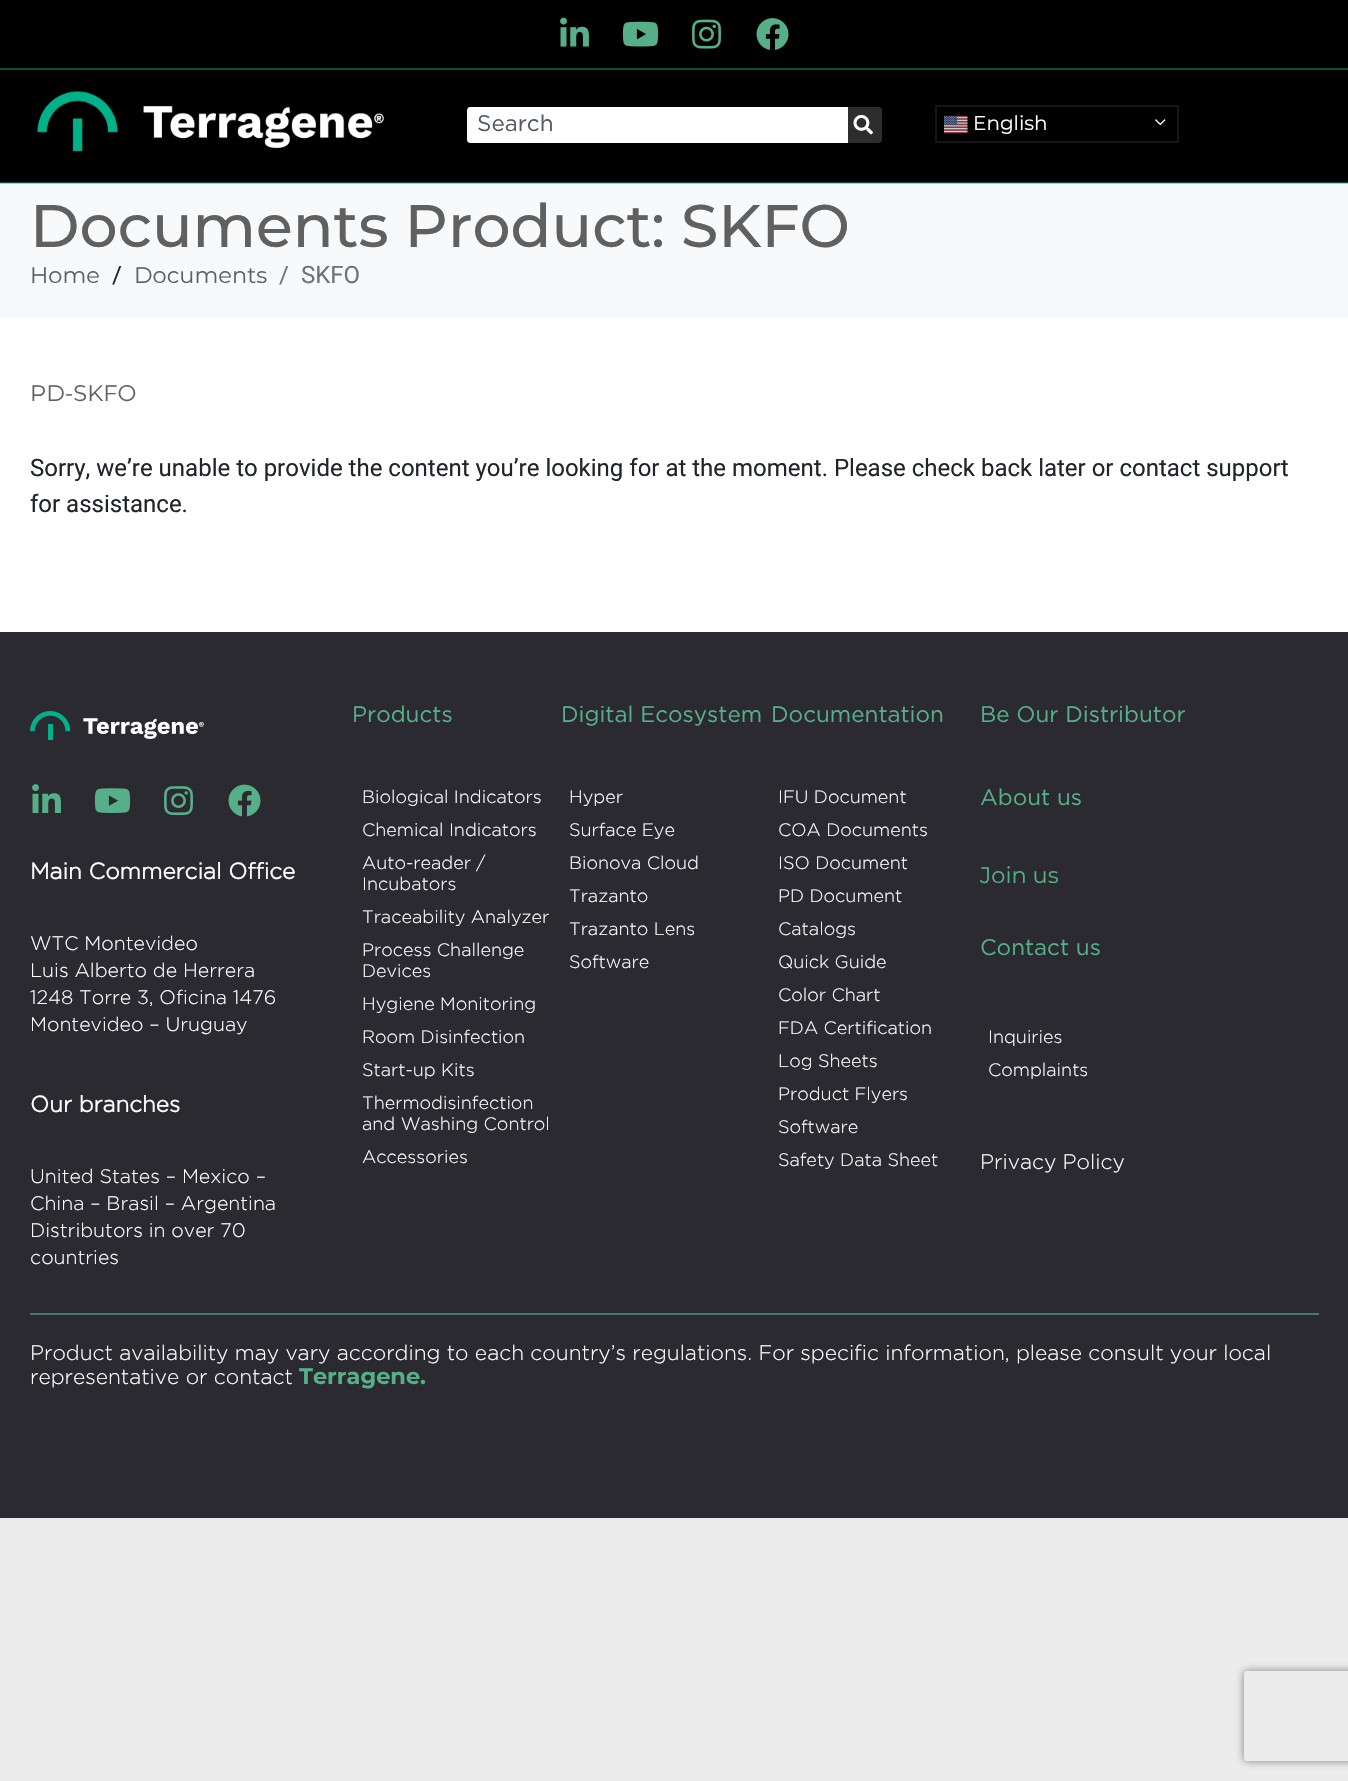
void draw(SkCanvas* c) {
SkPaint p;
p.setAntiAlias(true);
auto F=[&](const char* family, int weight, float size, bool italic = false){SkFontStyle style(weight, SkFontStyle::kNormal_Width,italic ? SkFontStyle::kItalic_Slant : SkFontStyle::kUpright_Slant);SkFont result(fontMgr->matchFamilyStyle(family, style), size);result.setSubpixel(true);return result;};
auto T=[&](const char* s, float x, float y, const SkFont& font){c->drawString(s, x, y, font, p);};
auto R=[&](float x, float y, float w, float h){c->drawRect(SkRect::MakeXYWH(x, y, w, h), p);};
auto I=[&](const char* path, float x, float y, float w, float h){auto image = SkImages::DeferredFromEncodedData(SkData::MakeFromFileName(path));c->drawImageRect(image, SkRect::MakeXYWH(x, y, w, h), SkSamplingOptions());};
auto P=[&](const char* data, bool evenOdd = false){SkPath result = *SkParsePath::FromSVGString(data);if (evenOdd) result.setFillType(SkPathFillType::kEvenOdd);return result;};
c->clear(0xffececec);
p.setColor(0xff000000);
R(0,0,1348,68);
p.setColor(0xff00523e);
R(0,68,1348,2);
I("1.png",560,17,29,30);
I("2.png",622,21,37,26);
I("3.png",692,19,29,30);
I("4.png",756,18,33,32);
p.setColor(0xff000000);
R(0,70,1348,112);
p.setColor(0xff00523e);
R(0,182,1348,1);
I("5.png",37,91,347,61);
p.setColor(0xffffffff);
c->drawPath(P("M470 107h378v36h-378c-1.5 0-3-1.5-3-3v-30c0-1.5 1.5-3 3-3z"),p);
auto f1 = F("Gotham",400,22.5);
p.setColor(0xff515962);
T("Search",477,131,f1);
p.setColor(0xff2d2d2d);
c->drawPath(P("M848 107h31c1.5 0 3 1.5 3 3v30c0 1.5-1.5 3-3 3h-31z"),p);
I("6.png",853,114,20,21);
p.setStroke(true);
p.setStrokeWidth(2);
p.setColor(0xff161616);
c->drawRect(SkRect::MakeXYWH(936,106,242,36),p);
I("7.png",944,115,24,19);
auto f2 = F("Montserrat",400,20);
p.setStroke(false);
p.setColor(0xffffffff);
T("English",973,130,f2);
I("8.png",1155,119,11,7);
R(0,318,1348,314);
p.setColor(0xfff8f9fa);
R(0,184,1348,134);
p.setColor(0xff86d8c5);
R(0,183,1348,1);
auto f3 = F("Montserrat",500,60);
p.setColor(0xff606060);
T("Documents Product: SKFO",30,247,f3);
auto f4 = F("Montserrat",400,22.5);
T("Home",30,283,f4);
auto f5 = F("Roboto",400,24);
p.setColor(0xff212529);
T("/",112,283,f5);
p.setColor(0xff606060);
T("Documents",134,283,f4);
p.setColor(0xff6c757d);
T("/",279,283,f5);
T("SKFO",301,283,f5);
p.setColor(0xff606060);
T("PD-SKFO",30,401,f4);
p.setColor(0xff212529);
T("Sorry, we’re unable to provide the content you’re looking for at the moment. Please check back later or contact support",30,476,f5);
T("for assistance.",30,512,f5);
p.setColor(0xff2b2a31);
R(0,632,1348,886);
I("9.png",30,711,174,29);
I("10.png",32,784,29,29);
I("11.png",94,788,37,25);
I("12.png",164,786,29,30);
I("13.png",228,784,33,33);
auto f6 = F("Gotham",700,22.5);
p.setColor(0xffffffff);
T("Main Commercial Office",30,879,f6);
auto f7 = F("Gotham",300,19.5);
T("WTC Montevideo",30,950,f7);
T("Luis Alberto de Herrera",30,977,f7);
T("1248 Torre 3, Oficina 1476",30,1004,f7);
T("Montevideo – Uruguay",30,1031,f7);
T("Our branches",30,1112,f6);
T("United States – Mexico –",30,1183,f7);
T("China – Brasil – Argentina",30,1210,f7);
T("Distributors in over 70",30,1237,f7);
T("countries",30,1264,f7);
p.setColor(0xff56af89);
T("Products",352,722,f1);
auto f8 = F("Gotham",300,18);
p.setColor(0xffffffff);
T("Biological Indicators",362,803,f8);
T("Chemical Indicators",362,836,f8);
T("Auto-reader /",362,869,f8);
T("Incubators",362,890,f8);
T("Traceability Analyzer",362,923,f8);
T("Process Challenge",362,956,f8);
T("Devices",362,977,f8);
T("Hygiene Monitoring",362,1010,f8);
T("Room Disinfection",362,1043,f8);
T("Start-up Kits",362,1076,f8);
T("Thermodisinfection",362,1109,f8);
T("and Washing Control",362,1130,f8);
T("Accessories",362,1163,f8);
p.setColor(0xff56af89);
T("Digital Ecosystem",561,722,f1);
p.setColor(0xffffffff);
T("Hyper",569,803,f8);
T("Surface Eye",569,836,f8);
T("Bionova Cloud",569,869,f8);
T("Trazanto",569,902,f8);
T("Trazanto Lens",569,935,f8);
T("Software",569,968,f8);
p.setColor(0xff56af89);
T("Documentation",771,722,f1);
p.setColor(0xffffffff);
T("IFU Document",778,803,f8);
T("COA Documents",778,836,f8);
T("ISO Document",778,869,f8);
T("PD Document",778,902,f8);
T("Catalogs",778,935,f8);
T("Quick Guide",778,968,f8);
T("Color Chart",778,1001,f8);
T("FDA Certification",778,1034,f8);
T("Log Sheets",778,1067,f8);
T("Product Flyers",778,1100,f8);
T("Software",778,1133,f8);
T("Safety Data Sheet",778,1166,f8);
p.setColor(0xff56af89);
T("Be Our Distributor",980,722,f1);
T("About us",980,805,f1);
T("Join us",980,883,f4);
T("Contact us",980,955,f1);
p.setColor(0xffffffff);
T("Inquiries",988,1043,f8);
T("Complaints",988,1076,f8);
auto f9 = F("Gotham",300,21);
T("Privacy Policy",980,1169,f9);
p.setColor(0xff457b67);
R(30,1313,1289,2);
p.setColor(0xffffffff);
T("Product availability may vary according to each country’s regulations. For specific information, please consult your local",30,1360,f9);
T("representative or contact",30,1384,f9);
auto f10 = F("Montserrat",700,22.5);
p.setColor(0xff56af89);
T("Terragene.",299,1384,f10);
c->save();
c->clipPath(P("M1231 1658h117v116h-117zm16 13h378c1.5 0 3 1.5 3 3v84c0 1.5-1.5 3-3 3h-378c-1.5 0-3-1.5-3-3v-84c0-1.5 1.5-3 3-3z",true),true);
p.setColor(0xff808080);
p.setMaskFilter(SkMaskFilter::MakeBlur(kNormal_SkBlurStyle, 4));
c->drawRoundRect(SkRect::MakeXYWH(1244,1671,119,90),3,3,p);
p.setMaskFilter(nullptr);
c->restore();
}
